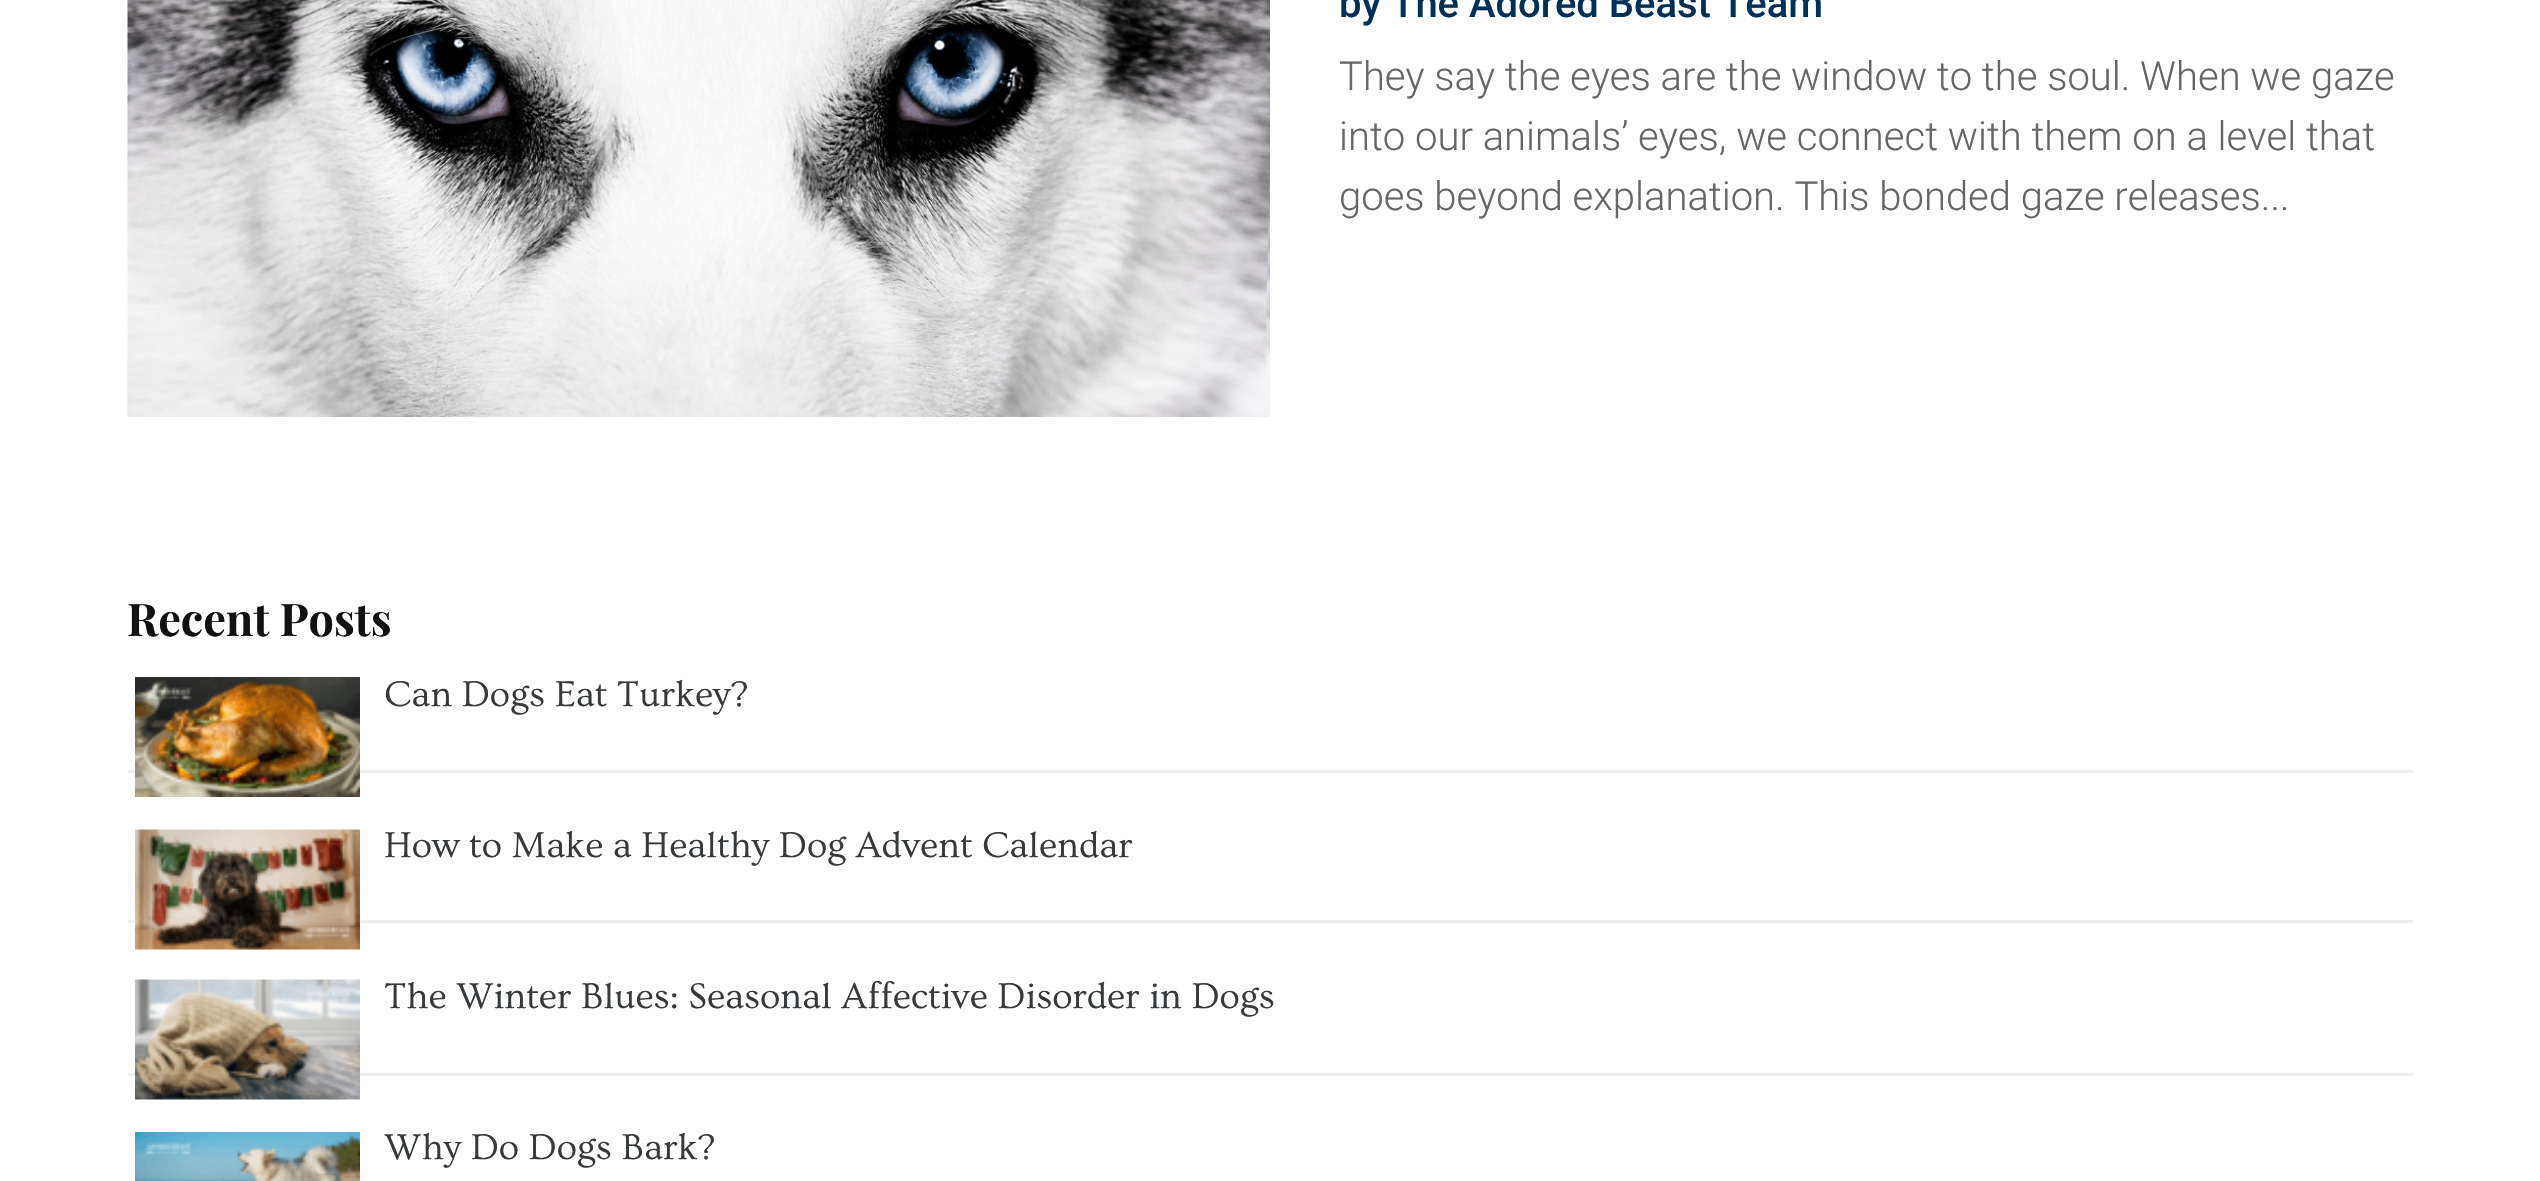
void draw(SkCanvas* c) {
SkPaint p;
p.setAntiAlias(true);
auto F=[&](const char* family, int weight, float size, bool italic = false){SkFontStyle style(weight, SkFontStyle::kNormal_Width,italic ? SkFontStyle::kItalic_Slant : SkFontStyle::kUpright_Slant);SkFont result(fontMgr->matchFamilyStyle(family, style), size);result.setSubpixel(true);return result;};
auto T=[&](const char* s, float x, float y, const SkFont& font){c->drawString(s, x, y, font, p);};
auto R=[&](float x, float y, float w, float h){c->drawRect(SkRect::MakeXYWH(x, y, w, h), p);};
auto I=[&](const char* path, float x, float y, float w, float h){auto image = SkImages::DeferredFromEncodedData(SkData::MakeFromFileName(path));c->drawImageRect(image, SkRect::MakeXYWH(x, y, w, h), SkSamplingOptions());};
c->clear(0xffffffff);
I("1.png",127,0,1143,417);
auto f1 = F("Roboto",500,40);
p.setColor(0xff003057);
T("by The Adored Beast Team",1339,17,f1);
auto f2 = F("Roboto",300,40);
p.setColor(0xff666666);
T("They say the eyes are the window to the soul. When we gaze",1339,90,f2);
T("into our animals’ eyes, we connect with them on a level that",1339,150,f2);
T("goes beyond explanation. This bonded gaze releases...",1339,210,f2);
auto f3 = F("Playfair Display",700,45);
p.setColor(0xff111111);
T("Recent Posts",127,636,f3);
p.setColor(0xffeeeeee);
R(128,770,2285,3);
I("2.png",135,677,225,120);
auto f4 = F("Ovo",400,37.5);
p.setColor(0xff373a3c);
T("Can Dogs Eat Turkey?",384,706,f4);
p.setColor(0xffeeeeee);
R(128,920,2285,3);
I("3.png",135,829,225,121);
p.setColor(0xff373a3c);
T("How to Make a Healthy Dog Advent Calendar",384,857,f4);
p.setColor(0xffeeeeee);
R(128,1073,2285,3);
I("4.png",135,979,225,121);
p.setColor(0xff373a3c);
T("The Winter Blues: Seasonal Affective Disorder in Dogs",384,1008,f4);
I("5.png",135,1132,225,49);
T("Why Do Dogs Bark?",384,1159,f4);
}
